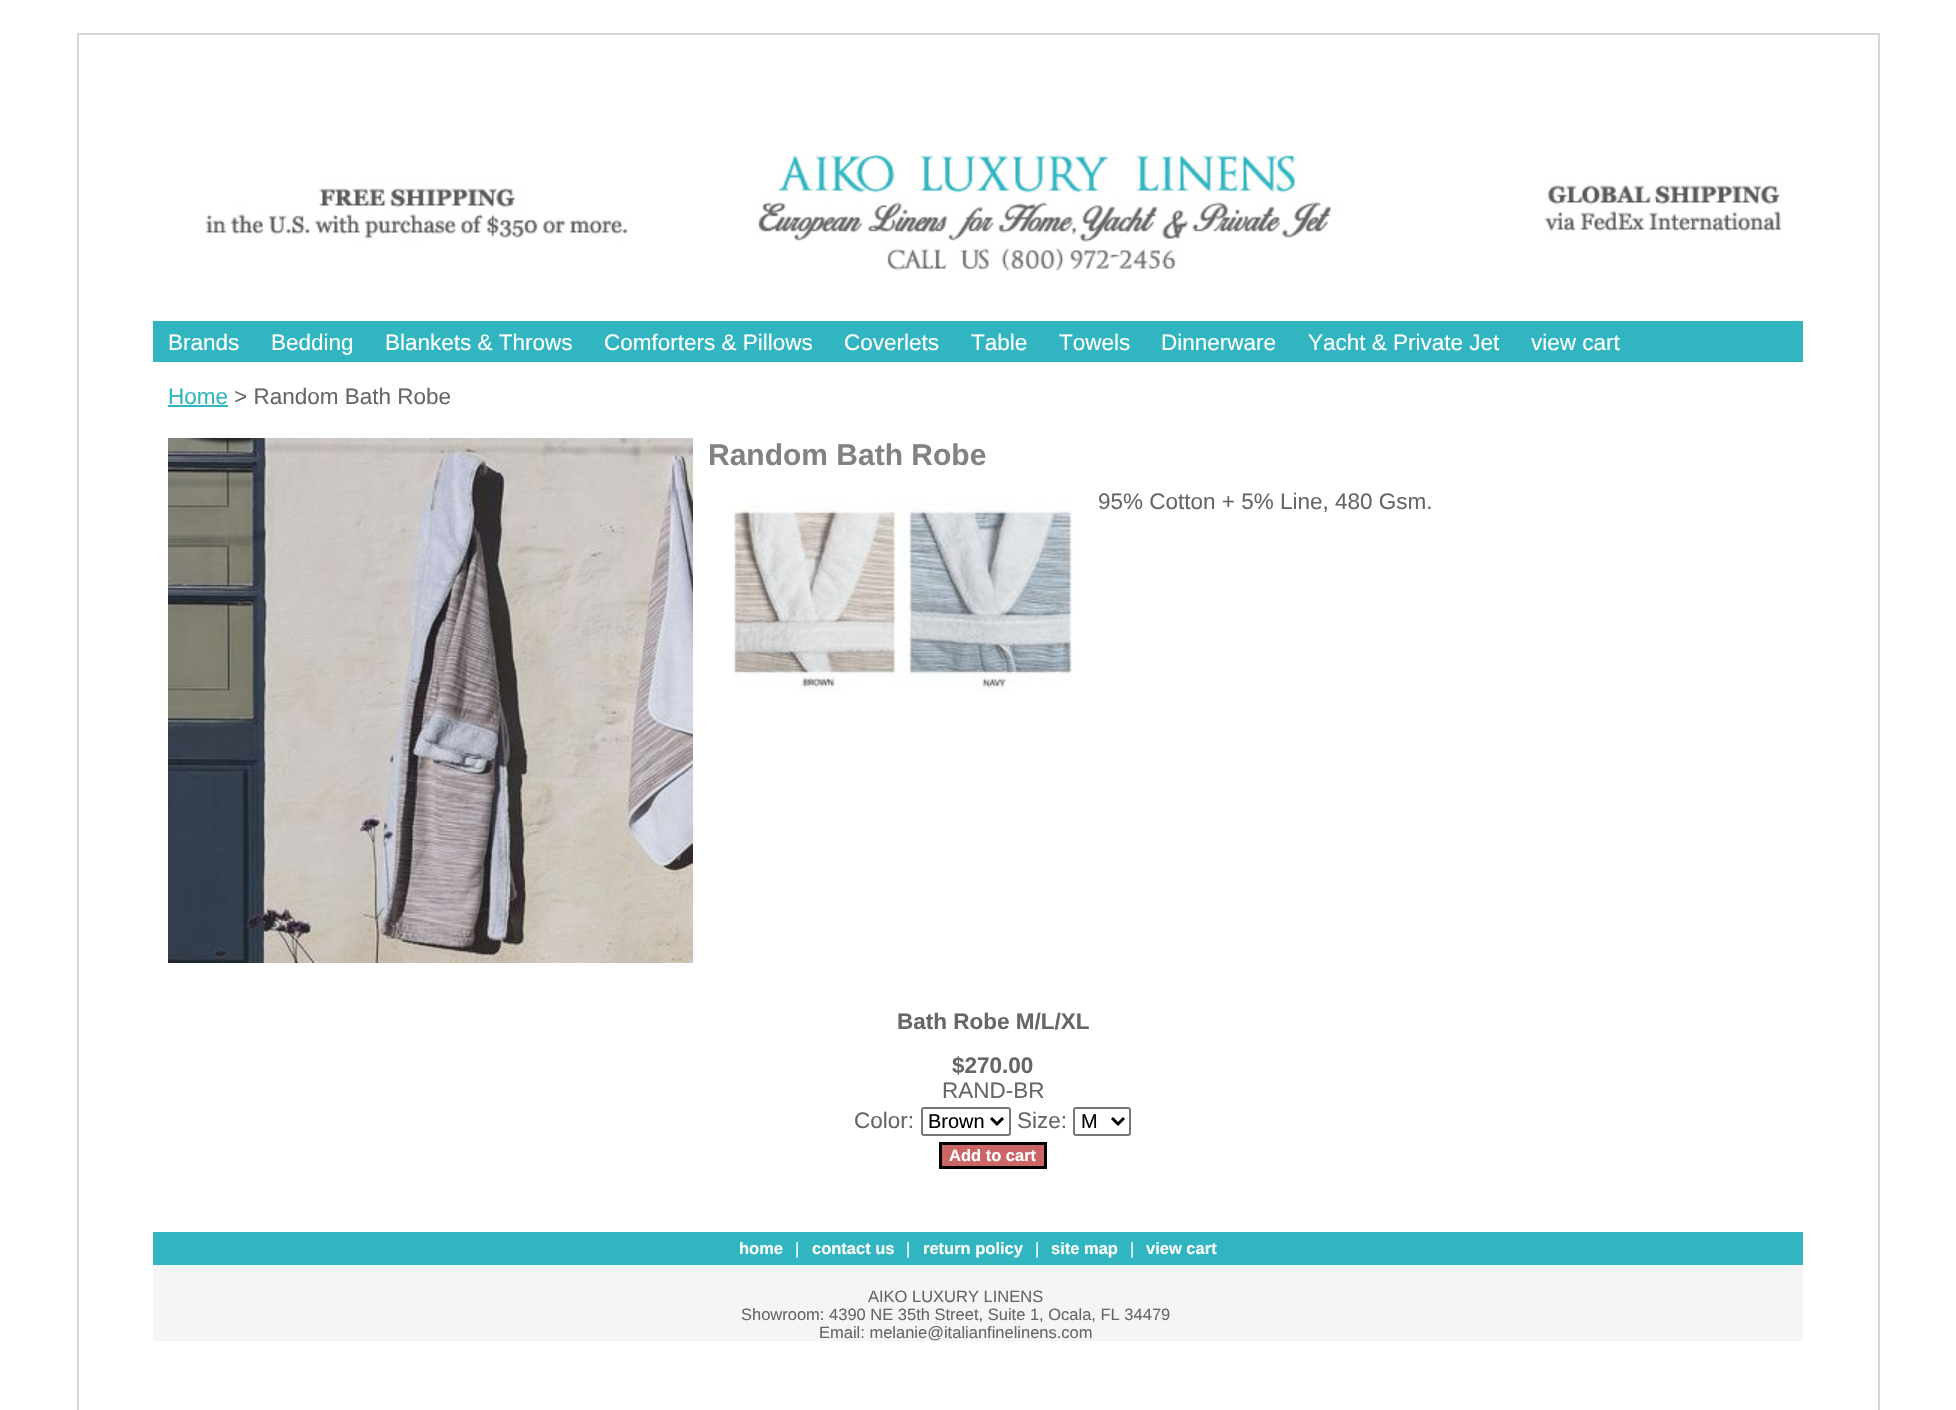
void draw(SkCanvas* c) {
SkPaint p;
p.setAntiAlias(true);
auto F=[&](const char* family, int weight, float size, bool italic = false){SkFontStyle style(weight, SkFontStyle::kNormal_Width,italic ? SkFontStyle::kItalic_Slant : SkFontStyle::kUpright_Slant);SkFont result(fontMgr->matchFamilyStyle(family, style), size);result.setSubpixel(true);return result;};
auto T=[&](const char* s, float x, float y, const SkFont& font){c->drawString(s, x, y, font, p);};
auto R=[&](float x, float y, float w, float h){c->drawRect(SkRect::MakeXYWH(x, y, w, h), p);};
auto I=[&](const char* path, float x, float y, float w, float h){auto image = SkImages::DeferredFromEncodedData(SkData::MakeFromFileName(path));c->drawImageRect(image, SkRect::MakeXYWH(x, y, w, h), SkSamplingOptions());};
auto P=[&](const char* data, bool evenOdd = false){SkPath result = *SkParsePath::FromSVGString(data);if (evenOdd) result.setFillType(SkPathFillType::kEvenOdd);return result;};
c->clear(0xffffffff);
p.setStroke(true);
p.setStrokeWidth(2);
p.setColor(0xffd7d7d7);
c->drawRect(SkRect::MakeXYWH(78,34,1801,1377),p);
I("1.png",205,152,1577,119);
p.setStroke(false);
p.setColor(0xff30b5c1);
R(153,321,1650,41);
auto f1 = F("Liberation Sans",400,22.5);
p.setColor(0xffffffff);
T("Brands",168,350,f1);
T("Bedding",271,350,f1);
T("Blankets & Throws",385,350,f1);
T("Comforters & Pillows",604,350,f1);
T("Coverlets",844,350,f1);
T("Table",971,350,f1);
T("Towels",1059,350,f1);
T("Dinnerware",1161,350,f1);
T("Yacht & Private Jet",1308,350,f1);
T("view cart",1531,350,f1);
p.setColor(0xff30b5c1);
T("Home",168,404,f1);
R(168,405,60,2);
p.setColor(0xff666666);
T("> Random Bath Robe",234,404,f1);
I("2.png",168,438,525,525);
auto f2 = F("Liberation Sans",700,30);
p.setColor(0xff818285);
T("Random Bath Robe",708,465,f2);
I("3.png",732,502,342,190);
p.setColor(0xff666666);
T("95% Cotton + 5% Line, 480 Gsm.",1098,509,f1);
auto f3 = F("Liberation Sans",700,22.5);
T("Bath Robe M/L/XL",897,1029,f3);
T("$270.00",952,1073,f3);
T("RAND-BR",942,1098,f1);
T("Color:",854,1128,f1);
p.setStroke(true);
p.setColor(0xff767676);
c->drawRoundRect(SkRect::MakeXYWH(922,1108,88,27),2,2,p);
p.setStrokeWidth(3);
p.setColor(0xff000000);
c->drawPath(P("M991 1118l6 6l6-6"),p);
auto f4 = F("Liberation Sans",400,20);
p.setStroke(false);
T("Brown",928,1128,f4);
p.setColor(0xff666666);
T("Size:",1017,1128,f1);
p.setStroke(true);
p.setStrokeWidth(2);
p.setColor(0xff767676);
c->drawRoundRect(SkRect::MakeXYWH(1074,1108,56,27),2,2,p);
p.setStrokeWidth(3);
p.setColor(0xff000000);
c->drawPath(P("M1112 1118l6 6l6-6"),p);
p.setStroke(false);
T("M",1081,1128,f4);
p.setColor(0xffcc6666);
c->drawRect(SkRect::MakeXYWH(940.5,1143.5,105,24),p);
p.setStroke(true);
p.setColor(0xff000000);
c->drawRect(SkRect::MakeXYWH(940.5,1143.5,105,24),p);
auto f5 = F("Liberation Sans",700,16.5);
p.setStroke(false);
p.setColor(0xffffffff);
T("Add to cart",949,1161,f5);
p.setColor(0xfff5f5f5);
R(153,1265,1650,76);
p.setColor(0xff30b5c1);
R(153,1232,1650,33);
p.setColor(0xffffffff);
T("home",739,1254,f5);
auto f6 = F("Liberation Sans",400,16.5);
T("|",795,1254,f6);
T("contact us",812,1254,f5);
T("|",906,1254,f6);
T("return policy",923,1254,f5);
T("|",1035,1254,f6);
T("site map",1051,1254,f5);
T("|",1130,1254,f6);
T("view cart",1146,1254,f5);
p.setColor(0xff666666);
T("AIKO LUXURY LINENS",868,1302,f6);
T("Showroom: 4390 NE 35th Street, Suite 1, Ocala, FL 34479",741,1320,f6);
T("Email: melanie@italianfinelinens.com",819,1338,f6);
}
